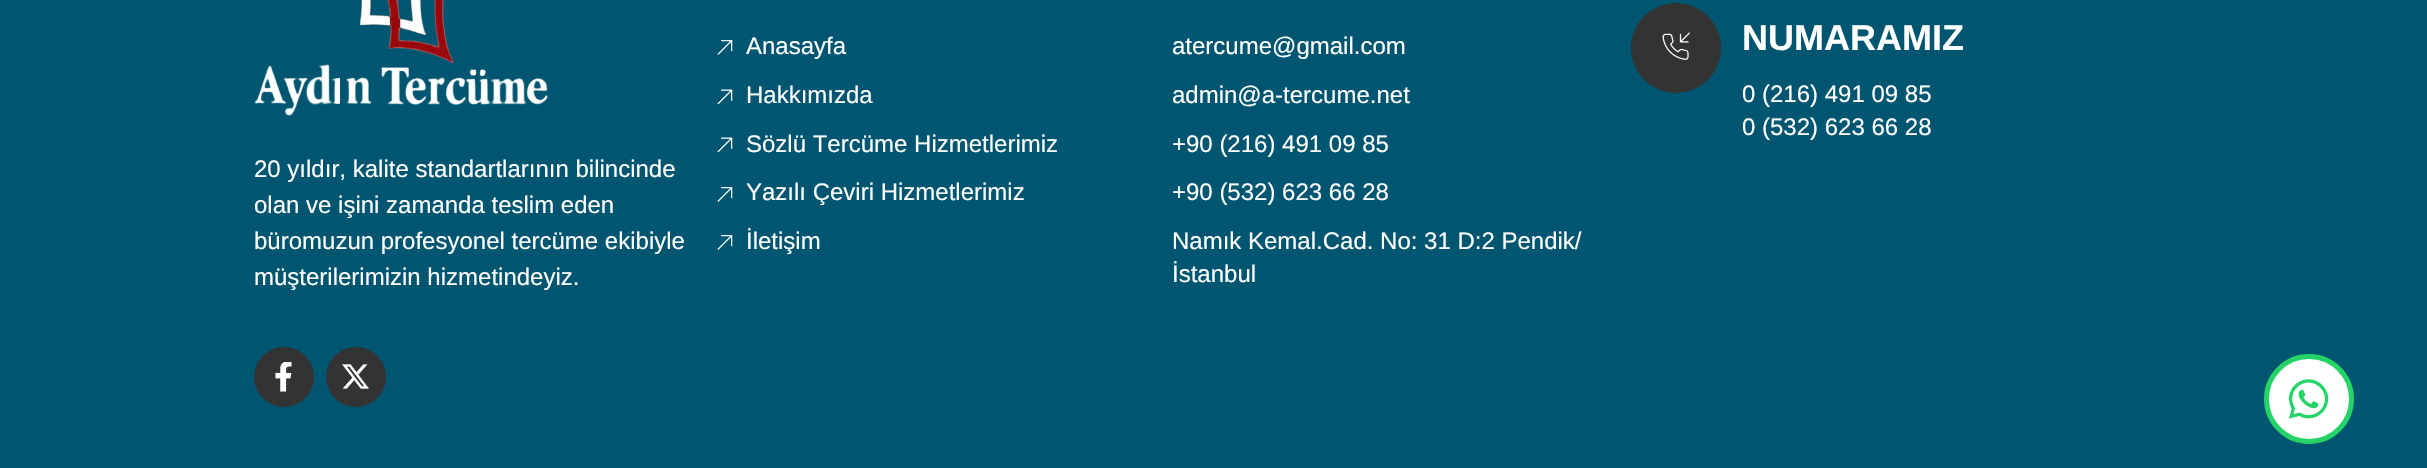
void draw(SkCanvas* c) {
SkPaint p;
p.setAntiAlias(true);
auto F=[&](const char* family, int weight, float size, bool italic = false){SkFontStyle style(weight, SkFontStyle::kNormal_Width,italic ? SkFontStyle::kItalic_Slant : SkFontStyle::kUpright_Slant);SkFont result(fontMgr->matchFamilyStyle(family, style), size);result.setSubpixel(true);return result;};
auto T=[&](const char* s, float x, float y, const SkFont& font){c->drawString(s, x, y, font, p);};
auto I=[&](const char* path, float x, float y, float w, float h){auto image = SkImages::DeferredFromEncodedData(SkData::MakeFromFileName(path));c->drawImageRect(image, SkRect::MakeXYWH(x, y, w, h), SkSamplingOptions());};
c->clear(0xff005670);
I("1.png",254,0,294,116);
auto f1 = F("Liberation Sans",400,24);
p.setColor(0xffffffff);
T("20 yıldır, kalite standartlarının bilincinde",254,177,f1);
T("olan ve işini zamanda teslim eden",254,213,f1);
T("büromuzun profesyonel tercüme ekibiyle",254,249,f1);
T("müşterilerimizin hizmetindeyiz.",254,285,f1);
p.setColor(0xff333333);
c->drawCircle(284,377,30,p);
I("2.png",275,362,17,30);
c->drawCircle(356,377,30,p);
I("3.png",342,364,27,25);
I("4.png",717,40,16,15);
p.setColor(0xffffffff);
T("Anasayfa",746,54,f1);
I("5.png",717,89,16,16);
T("Hakkımızda",746,103,f1);
I("5.png",717,137,16,16);
T("Sözlü Tercüme Hizmetlerimiz",746,152,f1);
I("4.png",717,187,16,15);
T("Yazılı Çeviri Hizmetlerimiz",746,200,f1);
I("4.png",717,235,16,15);
T("İletişim",746,249,f1);
T("atercume@gmail.com",1172,54,f1);
T("admin@a-tercume.net",1172,103,f1);
T("+90 (216) 491 09 85",1172,152,f1);
T("+90 (532) 623 66 28",1172,200,f1);
T("Namık Kemal.Cad. No: 31 D:2 Pendik/",1172,249,f1);
T("İstanbul",1172,282,f1);
p.setColor(0xff333333);
c->drawCircle(1676,48,45,p);
I("6.png",1662,32,28,28);
auto f2 = F("Liberation Sans",700,36);
p.setColor(0xffffffff);
T("NUMARAMIZ",1742,50,f2);
T("0 (216) 491 09 85",1742,102,f1);
T("0 (532) 623 66 28",1742,135,f1);
c->drawCircle(2309,399,42.5,p);
p.setStroke(true);
p.setStrokeWidth(5);
p.setColor(0xff25d366);
c->drawCircle(2309,399,42.5,p);
I("7.png",2288,379,41,40);
}
